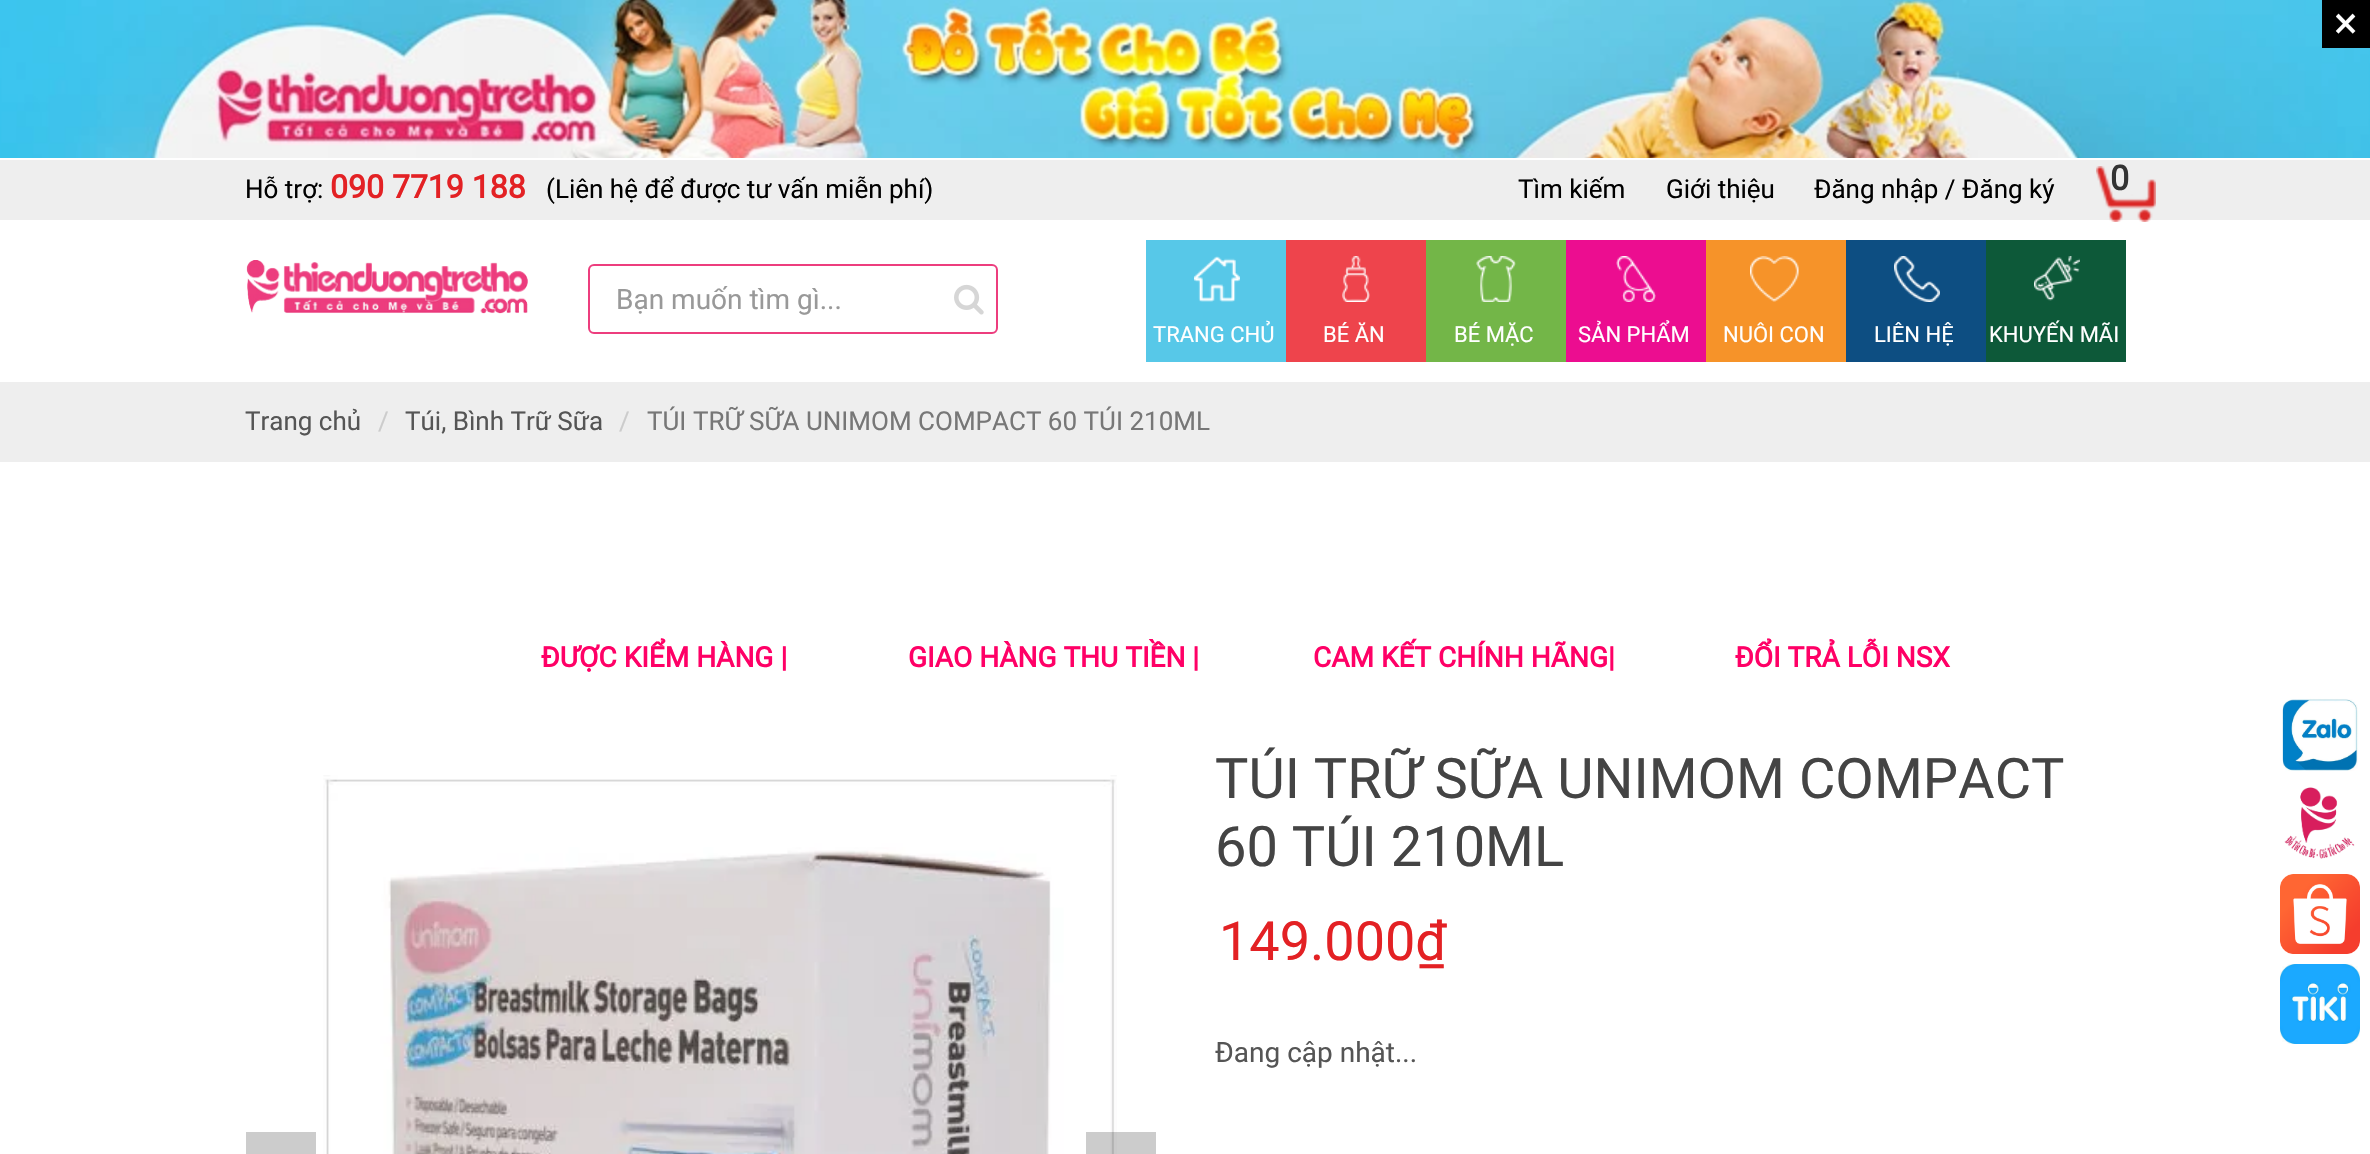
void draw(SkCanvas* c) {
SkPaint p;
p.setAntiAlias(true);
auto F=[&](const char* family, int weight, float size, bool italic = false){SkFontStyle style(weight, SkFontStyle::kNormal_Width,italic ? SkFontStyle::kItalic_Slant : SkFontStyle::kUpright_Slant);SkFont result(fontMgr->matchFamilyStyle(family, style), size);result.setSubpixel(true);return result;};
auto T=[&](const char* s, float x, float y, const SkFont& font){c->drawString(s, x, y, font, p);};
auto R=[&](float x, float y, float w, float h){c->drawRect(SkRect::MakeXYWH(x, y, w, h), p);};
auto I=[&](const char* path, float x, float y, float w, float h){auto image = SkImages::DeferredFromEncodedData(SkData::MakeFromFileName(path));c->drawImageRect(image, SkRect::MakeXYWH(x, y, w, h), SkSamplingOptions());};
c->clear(0xffffffff);
I("1.png",0,0,2370,158);
p.setColor(0xff000000);
R(2322,0,48,48);
auto f1 = F("Roboto",400,44);
p.setColor(0xffffffff);
T("×",2334,38,f1);
p.setColor(0xffeeeeee);
R(0,160,2370,60);
I("2.png",2096,166,60,56);
auto f2 = F("Roboto",700,34);
p.setColor(0xff333333);
T("0",2110,190,f2);
I("3.png",246,260,282,54);
p.setStroke(true);
p.setStrokeWidth(2);
p.setColor(0xffed3d7e);
c->drawRoundRect(SkRect::MakeXYWH(589,265,408,68),5,5,p);
auto f3 = F("Roboto",400,28);
p.setStroke(false);
p.setColor(0xff999999);
T("Bạn muốn tìm gì...",616,309,f3);
I("4.png",954,284,30,31);
p.setColor(0xff57c8e8);
R(1146,240,140,122);
I("5.png",1194,256,46,46);
auto f4 = F("Roboto",400,22);
p.setColor(0xffffffff);
T("TRANG CHỦ",1153,342,f4);
p.setColor(0xffee444c);
R(1286,240,140,122);
I("6.png",1342,256,28,46);
p.setColor(0xffffffff);
T("BÉ ĂN",1323,342,f4);
p.setColor(0xff73b648);
R(1426,240,140,122);
I("7.png",1476,256,40,46);
p.setColor(0xffffffff);
T("BÉ MẶC",1454,342,f4);
p.setColor(0xffec0d90);
R(1566,240,140,122);
I("8.png",1616,256,40,46);
p.setColor(0xffffffff);
T("SẢN PHẨM",1578,342,f4);
p.setColor(0xfff69329);
R(1706,240,140,122);
I("9.png",1750,256,49,46);
p.setColor(0xffffffff);
T("NUÔI CON",1723,342,f4);
p.setColor(0xff0d4e82);
R(1846,240,140,122);
I("10.png",1894,256,46,46);
p.setColor(0xffffffff);
T("LIÊN HỆ",1874,342,f4);
p.setColor(0xff0d5939);
R(1986,240,140,122);
I("11.png",2034,256,46,45);
p.setColor(0xffffffff);
T("KHUYẾN MÃI",1989,342,f4);
auto f5 = F("Roboto",400,26);
p.setColor(0xff000000);
T("Hỗ trợ:",245,198,f5);
auto f6 = F("Roboto",700,32);
p.setColor(0xffe32124);
T("090 7719 188",330,198,f6);
p.setColor(0xff000000);
T("(Liên hệ để được tư vấn miễn phí)",546,198,f5);
T("Tìm kiếm",1518,198,f5);
T("Giới thiệu",1666,198,f5);
T("Đăng nhập / Đăng ký",1814,198,f5);
p.setColor(0xffeeeeee);
R(0,382,2370,80);
p.setColor(0xff555555);
T("Trang chủ",245,430,f5);
p.setColor(0xffcccccc);
T("/",378,430,f5);
p.setColor(0xff555555);
T("Túi, Bình Trữ Sữa",405,430,f5);
p.setColor(0xffcccccc);
T("/",619,430,f5);
p.setColor(0xff777777);
T("TÚI TRỮ SỮA UNIMOM COMPACT 60 TÚI 210ML",647,430,f5);
auto f7 = F("Roboto",700,28);
p.setColor(0xffff0066);
T("ĐƯỢC KIỂM HÀNG |",541,667,f7);
T("GIAO HÀNG THU TIỀN |",908,667,f7);
T("CAM KẾT CHÍNH HÃNG|",1313,667,f7);
T("ĐỔI TRẢ LỖI NSX",1735,667,f7);
p.setColor(0xffcccccc);
R(246,1132,70,22);
I("12.png",323,775,794,379);
p.setColor(0x33000000);
R(1086,1132,70,22);
auto f8 = F("Roboto",400,56);
p.setColor(0xff444444);
T("TÚI TRỮ SỮA UNIMOM COMPACT",1215,798,f8);
T("60 TÚI 210ML",1215,866,f8);
auto f9 = F("Roboto",400,54);
p.setColor(0xffe32124);
T("149.000₫",1219,960,f9);
p.setColor(0xff555555);
T("Đang cập nhật...",1215,1062,f3);
I("13.png",2280,696,80,78);
I("14.png",2280,784,80,80);
I("15.png",2280,874,80,80);
I("16.png",2280,964,80,80);
}
